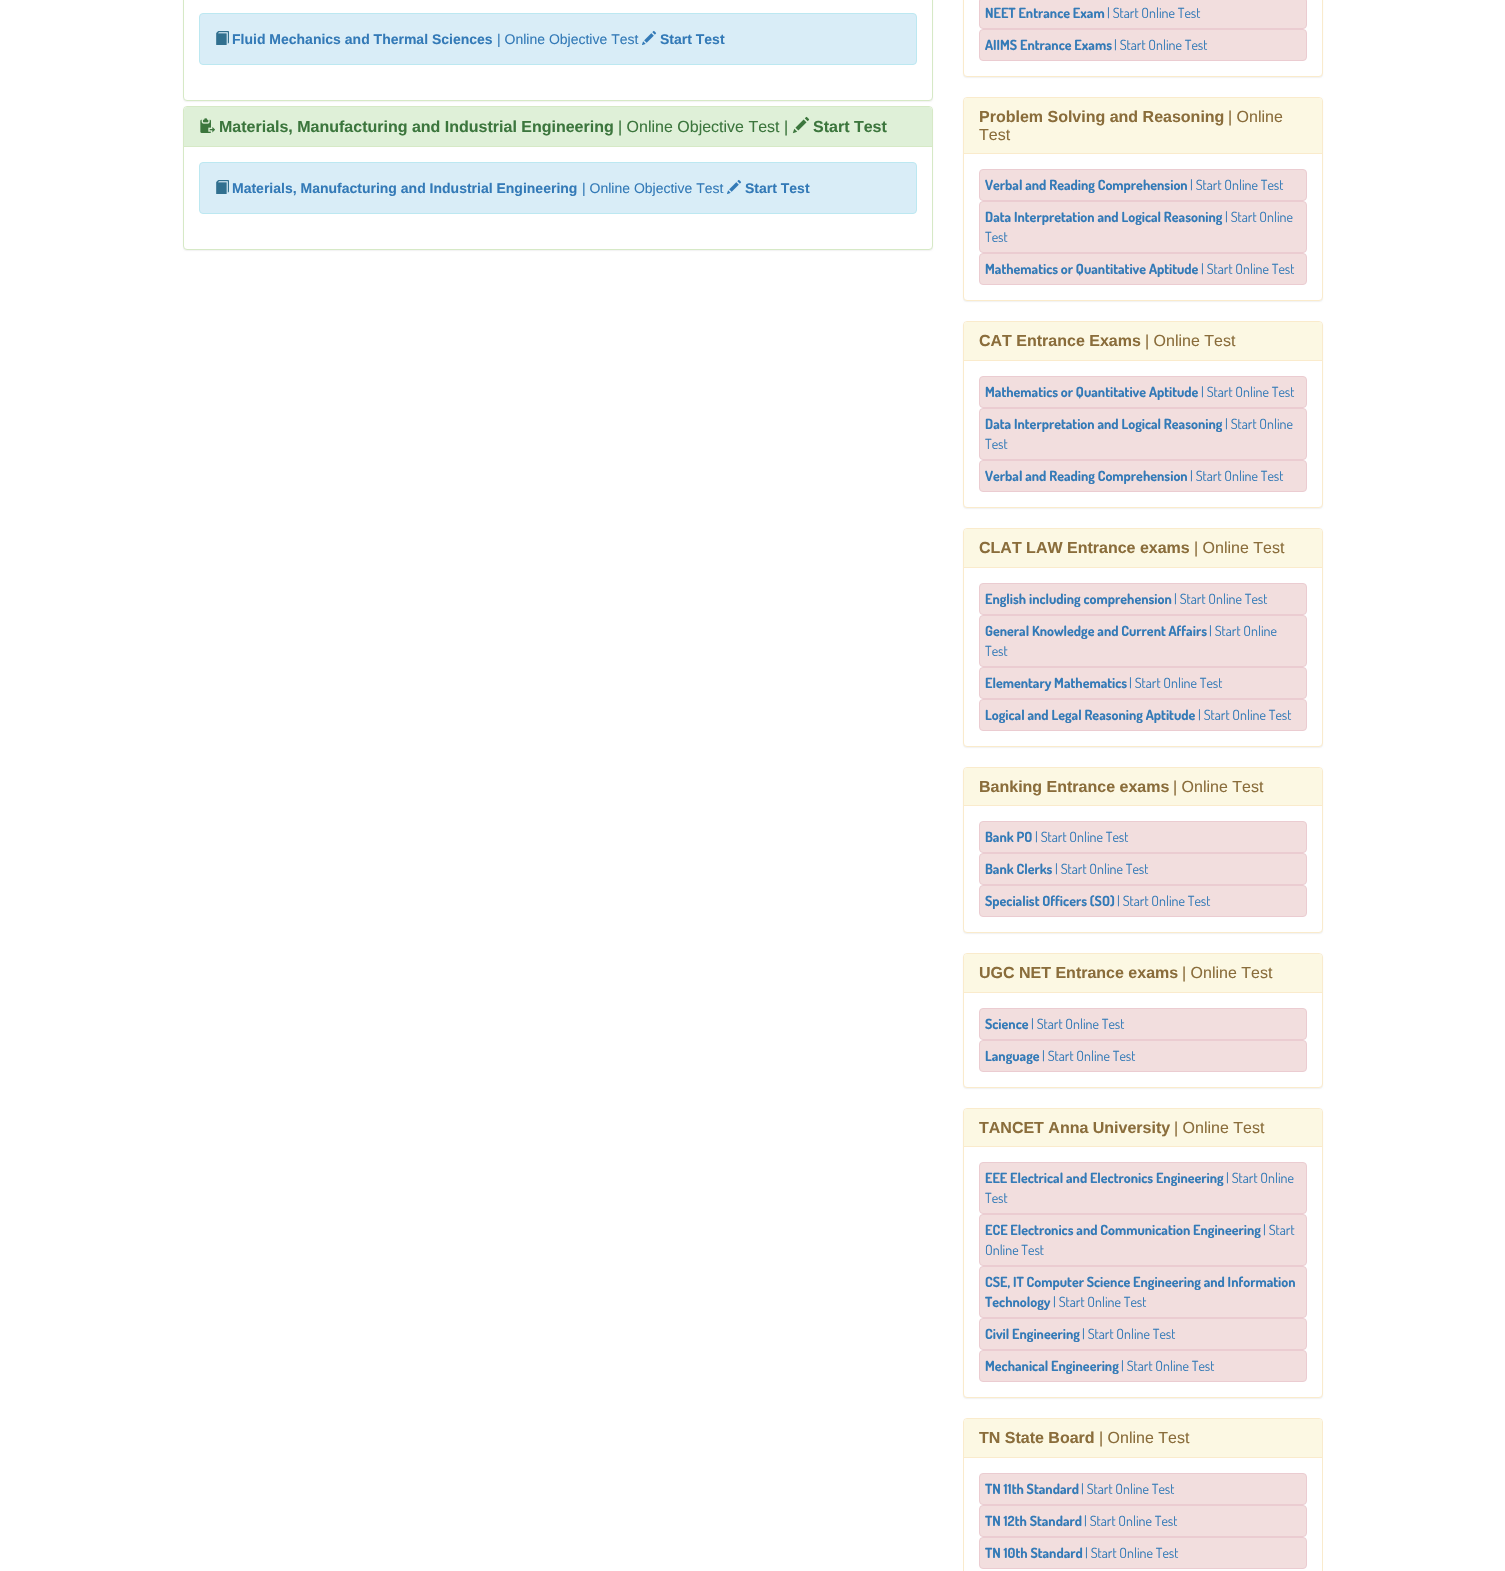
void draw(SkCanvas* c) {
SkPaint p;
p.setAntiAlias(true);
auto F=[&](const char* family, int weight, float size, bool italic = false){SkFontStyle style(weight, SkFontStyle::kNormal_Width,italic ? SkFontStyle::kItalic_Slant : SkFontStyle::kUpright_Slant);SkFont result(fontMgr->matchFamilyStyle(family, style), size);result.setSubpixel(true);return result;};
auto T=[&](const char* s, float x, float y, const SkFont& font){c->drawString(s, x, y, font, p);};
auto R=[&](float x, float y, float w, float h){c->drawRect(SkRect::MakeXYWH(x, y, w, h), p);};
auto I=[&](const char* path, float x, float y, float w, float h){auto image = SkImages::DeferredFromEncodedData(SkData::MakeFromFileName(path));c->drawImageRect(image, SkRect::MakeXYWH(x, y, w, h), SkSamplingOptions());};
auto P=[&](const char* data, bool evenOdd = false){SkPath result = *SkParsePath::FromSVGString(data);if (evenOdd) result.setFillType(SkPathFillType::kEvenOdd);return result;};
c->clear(0xffffffff);
p.setColor(0x0d000000);
p.setMaskFilter(SkMaskFilter::MakeBlur(kNormal_SkBlurStyle, .5));
c->drawRoundRect(SkRect::MakeXYWH(183,-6,750,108),4,4,p);
p.setMaskFilter(nullptr);
p.setColor(0xffffffff);
c->drawRoundRect(SkRect::MakeXYWH(183.5,-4.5,749,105),3.5,3.5,p);
p.setStroke(true);
p.setStrokeWidth(1);
p.setColor(0xffd6e9c6);
c->drawRoundRect(SkRect::MakeXYWH(183.5,-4.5,749,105),3.5,3.5,p);
p.setStroke(false);
p.setColor(0xffd9edf7);
c->drawRoundRect(SkRect::MakeXYWH(199.5,13.5,717,51),3.5,3.5,p);
p.setStroke(true);
p.setColor(0xffbce8f1);
c->drawRoundRect(SkRect::MakeXYWH(199.5,13.5,717,51),3.5,3.5,p);
I("1.png",216,31,13,14);
auto f1 = F("Liberation Sans",700,14);
p.setStroke(false);
p.setColor(0xff337ab7);
T("Fluid Mechanics and Thermal Sciences",232,44,f1);
auto f2 = F("Liberation Sans",400,14);
T("| Online Objective Test",497,44,f2);
I("2.png",642,30,15,15);
T("Start Test",660,44,f1);
p.setColor(0x0d000000);
p.setMaskFilter(SkMaskFilter::MakeBlur(kNormal_SkBlurStyle, .5));
c->drawRoundRect(SkRect::MakeXYWH(183,107,750,144),4,4,p);
p.setMaskFilter(nullptr);
p.setColor(0xffffffff);
c->drawRoundRect(SkRect::MakeXYWH(183.5,106.5,749,143),3.5,3.5,p);
p.setStroke(true);
p.setColor(0xffd6e9c6);
c->drawRoundRect(SkRect::MakeXYWH(183.5,106.5,749,143),3.5,3.5,p);
p.setStroke(false);
p.setColor(0xffdff0d8);
c->drawPath(P("M187 107h742c1.5 0 3 1.5 3 3v36h-748v-36c0-1.5 1.5-3 3-3z"),p);
I("3.png",200,118,15,15);
auto f3 = F("Liberation Sans",700,16);
p.setColor(0xff3c763d);
T("Materials, Manufacturing and Industrial Engineering",219,132,f3);
auto f4 = F("Liberation Sans",400,16);
T("| Online Objective Test |",618,132,f4);
I("4.png",792,116,18,18);
T("Start Test",813,132,f3);
p.setColor(0xffd6e9c6);
R(184,146,748,1);
p.setColor(0xffd9edf7);
c->drawRoundRect(SkRect::MakeXYWH(199.5,162.5,717,51),3.5,3.5,p);
p.setStroke(true);
p.setColor(0xffbce8f1);
c->drawRoundRect(SkRect::MakeXYWH(199.5,162.5,717,51),3.5,3.5,p);
I("1.png",216,180,13,14);
p.setStroke(false);
p.setColor(0xff337ab7);
T("Materials, Manufacturing and Industrial Engineering",232,193,f1);
T("| Online Objective Test",582,193,f2);
I("2.png",727,179,15,15);
T("Start Test",745,193,f1);
p.setColor(0x0d000000);
p.setMaskFilter(SkMaskFilter::MakeBlur(kNormal_SkBlurStyle, .5));
c->drawRoundRect(SkRect::MakeXYWH(963,-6,360,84),4,4,p);
p.setMaskFilter(nullptr);
p.setColor(0xffffffff);
c->drawRoundRect(SkRect::MakeXYWH(963.5,-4.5,359,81),3.5,3.5,p);
p.setStroke(true);
p.setColor(0xfffaebcc);
c->drawRoundRect(SkRect::MakeXYWH(963.5,-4.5,359,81),3.5,3.5,p);
p.setStroke(false);
p.setColor(0xfff2dede);
c->drawRoundRect(SkRect::MakeXYWH(979.5,-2.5,327,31),3.5,3.5,p);
p.setStroke(true);
p.setColor(0xffebccd1);
c->drawRoundRect(SkRect::MakeXYWH(979.5,-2.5,327,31),3.5,3.5,p);
auto f5 = F("Dosis",700,14);
p.setStroke(false);
p.setColor(0xff337ab7);
T("NEET Entrance Exam",985,18,f5);
auto f6 = F("Dosis",400,14);
T("| Start Online Test",1107,18,f6);
p.setColor(0xfff2dede);
c->drawRoundRect(SkRect::MakeXYWH(979.5,29.5,327,31),3.5,3.5,p);
p.setStroke(true);
p.setColor(0xffebccd1);
c->drawRoundRect(SkRect::MakeXYWH(979.5,29.5,327,31),3.5,3.5,p);
p.setStroke(false);
p.setColor(0xff337ab7);
T("AIIMS Entrance Exams",985,50,f5);
T("| Start Online Test",1114,50,f6);
p.setColor(0x0d000000);
p.setMaskFilter(SkMaskFilter::MakeBlur(kNormal_SkBlurStyle, .5));
c->drawRoundRect(SkRect::MakeXYWH(963,98,360,204),4,4,p);
p.setMaskFilter(nullptr);
p.setColor(0xffffffff);
c->drawRoundRect(SkRect::MakeXYWH(963.5,97.5,359,203),3.5,3.5,p);
p.setStroke(true);
p.setColor(0xfffaebcc);
c->drawRoundRect(SkRect::MakeXYWH(963.5,97.5,359,203),3.5,3.5,p);
p.setStroke(false);
p.setColor(0xfffcf8e3);
c->drawPath(P("M967 98h352c1.5 0 3 1.5 3 3v53h-358v-53c0-1.5 1.5-3 3-3z"),p);
p.setColor(0xfffaebcc);
R(964,153,358,1);
p.setColor(0xff8a6d3b);
T("Problem Solving and Reasoning",979,122,f3);
T("| Online",1228,122,f4);
T("Test",979,140,f4);
p.setColor(0xfff2dede);
c->drawRoundRect(SkRect::MakeXYWH(979.5,169.5,327,31),3.5,3.5,p);
p.setStroke(true);
p.setColor(0xffebccd1);
c->drawRoundRect(SkRect::MakeXYWH(979.5,169.5,327,31),3.5,3.5,p);
p.setStroke(false);
p.setColor(0xff337ab7);
T("Verbal and Reading Comprehension",985,190,f5);
T("| Start Online Test",1190,190,f6);
p.setColor(0xfff2dede);
c->drawRoundRect(SkRect::MakeXYWH(979.5,201.5,327,51),3.5,3.5,p);
p.setStroke(true);
p.setColor(0xffebccd1);
c->drawRoundRect(SkRect::MakeXYWH(979.5,201.5,327,51),3.5,3.5,p);
p.setStroke(false);
p.setColor(0xff337ab7);
T("Data Interpretation and Logical Reasoning",985,222,f5);
T("| Start Online",1225,222,f6);
T("Test",985,242,f6);
p.setColor(0xfff2dede);
c->drawRoundRect(SkRect::MakeXYWH(979.5,253.5,327,31),3.5,3.5,p);
p.setStroke(true);
p.setColor(0xffebccd1);
c->drawRoundRect(SkRect::MakeXYWH(979.5,253.5,327,31),3.5,3.5,p);
p.setStroke(false);
p.setColor(0xff337ab7);
T("Mathematics or Quantitative Aptitude",985,274,f5);
T("| Start Online Test",1201,274,f6);
p.setColor(0x0d000000);
p.setMaskFilter(SkMaskFilter::MakeBlur(kNormal_SkBlurStyle, .5));
c->drawRoundRect(SkRect::MakeXYWH(963,322,360,187),4,4,p);
p.setMaskFilter(nullptr);
p.setColor(0xffffffff);
c->drawRoundRect(SkRect::MakeXYWH(963.5,321.5,359,186),3.5,3.5,p);
p.setStroke(true);
p.setColor(0xfffaebcc);
c->drawRoundRect(SkRect::MakeXYWH(963.5,321.5,359,186),3.5,3.5,p);
p.setStroke(false);
p.setColor(0xfffcf8e3);
c->drawPath(P("M967 322h352c1.5 0 3 1.5 3 3v36h-358v-36c0-1.5 1.5-3 3-3z"),p);
p.setColor(0xfffaebcc);
R(964,360,358,1);
p.setColor(0xff8a6d3b);
T("CAT Entrance Exams",979,346,f3);
T("| Online Test",1145,346,f4);
p.setColor(0xfff2dede);
c->drawRoundRect(SkRect::MakeXYWH(979.5,376.5,327,31),3.5,3.5,p);
p.setStroke(true);
p.setColor(0xffebccd1);
c->drawRoundRect(SkRect::MakeXYWH(979.5,376.5,327,31),3.5,3.5,p);
p.setStroke(false);
p.setColor(0xff337ab7);
T("Mathematics or Quantitative Aptitude",985,397,f5);
T("| Start Online Test",1201,397,f6);
p.setColor(0xfff2dede);
c->drawRoundRect(SkRect::MakeXYWH(979.5,408.5,327,51),3.5,3.5,p);
p.setStroke(true);
p.setColor(0xffebccd1);
c->drawRoundRect(SkRect::MakeXYWH(979.5,408.5,327,51),3.5,3.5,p);
p.setStroke(false);
p.setColor(0xff337ab7);
T("Data Interpretation and Logical Reasoning",985,429,f5);
T("| Start Online",1225,429,f6);
T("Test",985,449,f6);
p.setColor(0xfff2dede);
c->drawRoundRect(SkRect::MakeXYWH(979.5,460.5,327,31),3.5,3.5,p);
p.setStroke(true);
p.setColor(0xffebccd1);
c->drawRoundRect(SkRect::MakeXYWH(979.5,460.5,327,31),3.5,3.5,p);
p.setStroke(false);
p.setColor(0xff337ab7);
T("Verbal and Reading Comprehension",985,481,f5);
T("| Start Online Test",1190,481,f6);
p.setColor(0x0d000000);
p.setMaskFilter(SkMaskFilter::MakeBlur(kNormal_SkBlurStyle, .5));
c->drawRoundRect(SkRect::MakeXYWH(963,529,360,219),4,4,p);
p.setMaskFilter(nullptr);
p.setColor(0xffffffff);
c->drawRoundRect(SkRect::MakeXYWH(963.5,528.5,359,218),3.5,3.5,p);
p.setStroke(true);
p.setColor(0xfffaebcc);
c->drawRoundRect(SkRect::MakeXYWH(963.5,528.5,359,218),3.5,3.5,p);
p.setStroke(false);
p.setColor(0xfffcf8e3);
c->drawPath(P("M967 529h352c1.5 0 3 1.5 3 3v36h-358v-36c0-1.5 1.5-3 3-3z"),p);
p.setColor(0xfffaebcc);
R(964,567,358,1);
p.setColor(0xff8a6d3b);
T("CLAT LAW Entrance exams",979,553,f3);
T("| Online Test",1194,553,f4);
p.setColor(0xfff2dede);
c->drawRoundRect(SkRect::MakeXYWH(979.5,583.5,327,31),3.5,3.5,p);
p.setStroke(true);
p.setColor(0xffebccd1);
c->drawRoundRect(SkRect::MakeXYWH(979.5,583.5,327,31),3.5,3.5,p);
p.setStroke(false);
p.setColor(0xff337ab7);
T("English including comprehension",985,604,f5);
T("| Start Online Test",1174,604,f6);
p.setColor(0xfff2dede);
c->drawRoundRect(SkRect::MakeXYWH(979.5,615.5,327,51),3.5,3.5,p);
p.setStroke(true);
p.setColor(0xffebccd1);
c->drawRoundRect(SkRect::MakeXYWH(979.5,615.5,327,51),3.5,3.5,p);
p.setStroke(false);
p.setColor(0xff337ab7);
T("General Knowledge and Current Affairs",985,636,f5);
T("| Start Online",1209,636,f6);
T("Test",985,656,f6);
p.setColor(0xfff2dede);
c->drawRoundRect(SkRect::MakeXYWH(979.5,667.5,327,31),3.5,3.5,p);
p.setStroke(true);
p.setColor(0xffebccd1);
c->drawRoundRect(SkRect::MakeXYWH(979.5,667.5,327,31),3.5,3.5,p);
p.setStroke(false);
p.setColor(0xff337ab7);
T("Elementary Mathematics",985,688,f5);
T("| Start Online Test",1129,688,f6);
p.setColor(0xfff2dede);
c->drawRoundRect(SkRect::MakeXYWH(979.5,699.5,327,31),3.5,3.5,p);
p.setStroke(true);
p.setColor(0xffebccd1);
c->drawRoundRect(SkRect::MakeXYWH(979.5,699.5,327,31),3.5,3.5,p);
p.setStroke(false);
p.setColor(0xff337ab7);
T("Logical and Legal Reasoning Aptitude",985,720,f5);
T("| Start Online Test",1198,720,f6);
p.setColor(0x0d000000);
p.setMaskFilter(SkMaskFilter::MakeBlur(kNormal_SkBlurStyle, .5));
c->drawRoundRect(SkRect::MakeXYWH(963,768,360,166),4,4,p);
p.setMaskFilter(nullptr);
p.setColor(0xffffffff);
c->drawRoundRect(SkRect::MakeXYWH(963.5,767.5,359,165),3.5,3.5,p);
p.setStroke(true);
p.setColor(0xfffaebcc);
c->drawRoundRect(SkRect::MakeXYWH(963.5,767.5,359,165),3.5,3.5,p);
p.setStroke(false);
p.setColor(0xfffcf8e3);
c->drawPath(P("M967 768h352c1.5 0 3 1.5 3 3v35h-358v-35c0-1.5 1.5-3 3-3z"),p);
p.setColor(0xfffaebcc);
R(964,805,358,1);
p.setColor(0xff8a6d3b);
T("Banking Entrance exams",979,792,f3);
T("| Online Test",1173,792,f4);
p.setColor(0xfff2dede);
c->drawRoundRect(SkRect::MakeXYWH(979.5,821.5,327,31),3.5,3.5,p);
p.setStroke(true);
p.setColor(0xffebccd1);
c->drawRoundRect(SkRect::MakeXYWH(979.5,821.5,327,31),3.5,3.5,p);
p.setStroke(false);
p.setColor(0xff337ab7);
T("Bank PO",985,842,f5);
T("| Start Online Test",1035,842,f6);
p.setColor(0xfff2dede);
c->drawRoundRect(SkRect::MakeXYWH(979.5,853.5,327,31),3.5,3.5,p);
p.setStroke(true);
p.setColor(0xffebccd1);
c->drawRoundRect(SkRect::MakeXYWH(979.5,853.5,327,31),3.5,3.5,p);
p.setStroke(false);
p.setColor(0xff337ab7);
T("Bank Clerks",985,874,f5);
T("| Start Online Test",1055,874,f6);
p.setColor(0xfff2dede);
c->drawRoundRect(SkRect::MakeXYWH(979.5,885.5,327,31),3.5,3.5,p);
p.setStroke(true);
p.setColor(0xffebccd1);
c->drawRoundRect(SkRect::MakeXYWH(979.5,885.5,327,31),3.5,3.5,p);
p.setStroke(false);
p.setColor(0xff337ab7);
T("Specialist Officers (SO)",985,906,f5);
T("| Start Online Test",1117,906,f6);
p.setColor(0x0d000000);
p.setMaskFilter(SkMaskFilter::MakeBlur(kNormal_SkBlurStyle, .5));
c->drawRoundRect(SkRect::MakeXYWH(963,954,360,135),4,4,p);
p.setMaskFilter(nullptr);
p.setColor(0xffffffff);
c->drawRoundRect(SkRect::MakeXYWH(963.5,953.5,359,134),3.5,3.5,p);
p.setStroke(true);
p.setColor(0xfffaebcc);
c->drawRoundRect(SkRect::MakeXYWH(963.5,953.5,359,134),3.5,3.5,p);
p.setStroke(false);
p.setColor(0xfffcf8e3);
c->drawPath(P("M967 954h352c1.5 0 3 1.5 3 3v36h-358v-36c0-1.5 1.5-3 3-3z"),p);
p.setColor(0xfffaebcc);
R(964,992,358,1);
p.setColor(0xff8a6d3b);
T("UGC NET Entrance exams",979,978,f3);
T("| Online Test",1182,978,f4);
p.setColor(0xfff2dede);
c->drawRoundRect(SkRect::MakeXYWH(979.5,1008.5,327,31),3.5,3.5,p);
p.setStroke(true);
p.setColor(0xffebccd1);
c->drawRoundRect(SkRect::MakeXYWH(979.5,1008.5,327,31),3.5,3.5,p);
p.setStroke(false);
p.setColor(0xff337ab7);
T("Science",985,1029,f5);
T("| Start Online Test",1031,1029,f6);
p.setColor(0xfff2dede);
c->drawRoundRect(SkRect::MakeXYWH(979.5,1040.5,327,31),3.5,3.5,p);
p.setStroke(true);
p.setColor(0xffebccd1);
c->drawRoundRect(SkRect::MakeXYWH(979.5,1040.5,327,31),3.5,3.5,p);
p.setStroke(false);
p.setColor(0xff337ab7);
T("Language",985,1061,f5);
T("| Start Online Test",1042,1061,f6);
p.setColor(0x0d000000);
p.setMaskFilter(SkMaskFilter::MakeBlur(kNormal_SkBlurStyle, .5));
c->drawRoundRect(SkRect::MakeXYWH(963,1109,360,290),4,4,p);
p.setMaskFilter(nullptr);
p.setColor(0xffffffff);
c->drawRoundRect(SkRect::MakeXYWH(963.5,1108.5,359,289),3.5,3.5,p);
p.setStroke(true);
p.setColor(0xfffaebcc);
c->drawRoundRect(SkRect::MakeXYWH(963.5,1108.5,359,289),3.5,3.5,p);
p.setStroke(false);
p.setColor(0xfffcf8e3);
c->drawPath(P("M967 1109h352c1.5 0 3 1.5 3 3v35h-358v-35c0-1.5 1.5-3 3-3z"),p);
p.setColor(0xfffaebcc);
R(964,1146,358,1);
p.setColor(0xff8a6d3b);
T("TANCET Anna University",979,1133,f3);
T("| Online Test",1174,1133,f4);
p.setColor(0xfff2dede);
c->drawRoundRect(SkRect::MakeXYWH(979.5,1162.5,327,51),3.5,3.5,p);
p.setStroke(true);
p.setColor(0xffebccd1);
c->drawRoundRect(SkRect::MakeXYWH(979.5,1162.5,327,51),3.5,3.5,p);
p.setStroke(false);
p.setColor(0xff337ab7);
T("EEE Electrical and Electronics Engineering",985,1183,f5);
T("| Start Online",1226,1183,f6);
T("Test",985,1203,f6);
p.setColor(0xfff2dede);
c->drawRoundRect(SkRect::MakeXYWH(979.5,1214.5,327,51),3.5,3.5,p);
p.setStroke(true);
p.setColor(0xffebccd1);
c->drawRoundRect(SkRect::MakeXYWH(979.5,1214.5,327,51),3.5,3.5,p);
p.setStroke(false);
p.setColor(0xff337ab7);
T("ECE Electronics and Communication Engineering",985,1235,f5);
T("| Start",1263,1235,f6);
T("Online Test",985,1255,f6);
p.setColor(0xfff2dede);
c->drawRoundRect(SkRect::MakeXYWH(979.5,1266.5,327,51),3.5,3.5,p);
p.setStroke(true);
p.setColor(0xffebccd1);
c->drawRoundRect(SkRect::MakeXYWH(979.5,1266.5,327,51),3.5,3.5,p);
p.setStroke(false);
p.setColor(0xff337ab7);
T("CSE, IT Computer Science Engineering and Information",985,1287,f5);
T("Technology",985,1307,f5);
T("| Start Online Test",1053,1307,f6);
p.setColor(0xfff2dede);
c->drawRoundRect(SkRect::MakeXYWH(979.5,1318.5,327,31),3.5,3.5,p);
p.setStroke(true);
p.setColor(0xffebccd1);
c->drawRoundRect(SkRect::MakeXYWH(979.5,1318.5,327,31),3.5,3.5,p);
p.setStroke(false);
p.setColor(0xff337ab7);
T("Civil Engineering",985,1339,f5);
T("| Start Online Test",1082,1339,f6);
p.setColor(0xfff2dede);
c->drawRoundRect(SkRect::MakeXYWH(979.5,1350.5,327,31),3.5,3.5,p);
p.setStroke(true);
p.setColor(0xffebccd1);
c->drawRoundRect(SkRect::MakeXYWH(979.5,1350.5,327,31),3.5,3.5,p);
p.setStroke(false);
p.setColor(0xff337ab7);
T("Mechanical Engineering",985,1371,f5);
T("| Start Online Test",1121,1371,f6);
p.setStroke(true);
p.setColor(0xfffaebcc);
c->drawRoundRect(SkRect::MakeXYWH(963.5,1418.5,359,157),3.5,3.5,p);
p.setStroke(false);
p.setColor(0xfffcf8e3);
c->drawPath(P("M967 1419h352c1.5 0 3 1.5 3 3v36h-358v-36c0-1.5 1.5-3 3-3z"),p);
p.setColor(0xfffaebcc);
R(964,1457,358,1);
p.setColor(0xff8a6d3b);
T("TN State Board",979,1443,f3);
T("| Online Test",1099,1443,f4);
p.setColor(0xfff2dede);
c->drawRoundRect(SkRect::MakeXYWH(979.5,1473.5,327,31),3.5,3.5,p);
p.setStroke(true);
p.setColor(0xffebccd1);
c->drawRoundRect(SkRect::MakeXYWH(979.5,1473.5,327,31),3.5,3.5,p);
p.setStroke(false);
p.setColor(0xff337ab7);
T("TN 11th Standard",985,1494,f5);
T("| Start Online Test",1081,1494,f6);
p.setColor(0xfff2dede);
c->drawRoundRect(SkRect::MakeXYWH(979.5,1505.5,327,31),3.5,3.5,p);
p.setStroke(true);
p.setColor(0xffebccd1);
c->drawRoundRect(SkRect::MakeXYWH(979.5,1505.5,327,31),3.5,3.5,p);
p.setStroke(false);
p.setColor(0xff337ab7);
T("TN 12th Standard",985,1526,f5);
T("| Start Online Test",1084,1526,f6);
p.setColor(0xfff2dede);
c->drawRoundRect(SkRect::MakeXYWH(979.5,1537.5,327,31),3.5,3.5,p);
p.setStroke(true);
p.setColor(0xffebccd1);
c->drawRoundRect(SkRect::MakeXYWH(979.5,1537.5,327,31),3.5,3.5,p);
p.setStroke(false);
p.setColor(0xff337ab7);
T("TN 10th Standard",985,1558,f5);
T("| Start Online Test",1085,1558,f6);
}
